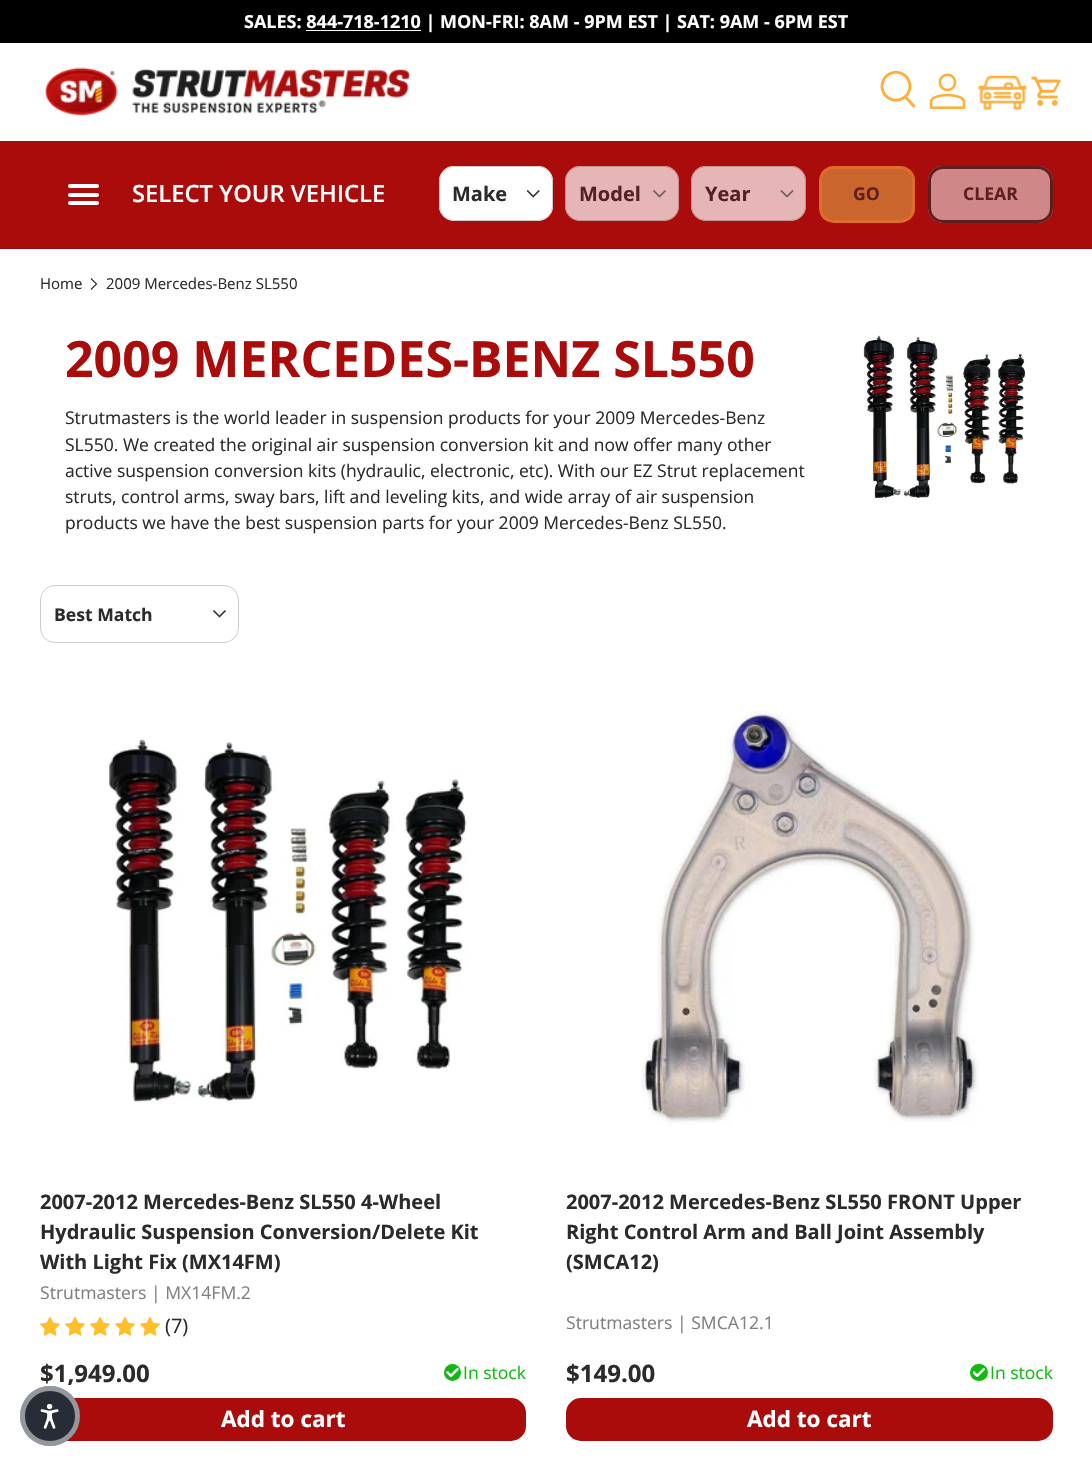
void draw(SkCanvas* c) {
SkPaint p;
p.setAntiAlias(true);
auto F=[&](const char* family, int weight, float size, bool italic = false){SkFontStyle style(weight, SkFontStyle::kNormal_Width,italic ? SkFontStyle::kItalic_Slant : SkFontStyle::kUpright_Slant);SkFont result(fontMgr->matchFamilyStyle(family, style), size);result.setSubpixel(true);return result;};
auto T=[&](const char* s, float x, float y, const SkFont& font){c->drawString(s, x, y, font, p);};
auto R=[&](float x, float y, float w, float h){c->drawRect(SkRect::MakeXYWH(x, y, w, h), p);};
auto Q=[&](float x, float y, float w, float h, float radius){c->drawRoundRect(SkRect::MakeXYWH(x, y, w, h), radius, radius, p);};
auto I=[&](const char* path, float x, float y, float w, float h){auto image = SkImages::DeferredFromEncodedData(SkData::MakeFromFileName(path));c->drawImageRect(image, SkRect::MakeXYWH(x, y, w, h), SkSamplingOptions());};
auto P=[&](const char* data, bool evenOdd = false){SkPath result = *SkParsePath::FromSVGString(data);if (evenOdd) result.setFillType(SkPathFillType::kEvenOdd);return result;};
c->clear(0xffffffff);
p.setColor(0xff000000);
R(0,0,1092,43);
auto f1 = F("Open Sans",700,18);
p.setColor(0xffffffff);
T("SALES: 844-718-1210 | MON-FRI: 8AM - 9PM EST | SAT: 9AM - 6PM EST",244,28,f1);
R(306,30,115,1);
I("1.png",45,67,366,49);
I("2.png",880,70,36,38);
I("3.png",929,73,37,36);
I("4.png",978,75,49,35);
I("5.png",1031,76,30,30);
p.setColor(0xffaa0c0c);
R(0,141,1092,107);
p.setColor(0xff920b0b);
R(0,248,1092,1);
p.setColor(0xffffffff);
Q(68,184,31,4,2);
Q(68,201,31,4,2);
Q(68,193,31,4,2);
auto f2 = F("Open Sans",600,23.75);
T("SELECT YOUR VEHICLE",132,202,f2);
Q(439,166,114,55,15);
I("6.png",526,189,14,9);
p.setStroke(true);
p.setStrokeWidth(1);
p.setColor(0xffcccccc);
c->drawRoundRect(SkRect::MakeXYWH(439.5,166.5,113,54),14.5,14.5,p);
auto f3 = F("Open Sans",700,20);
p.setStroke(false);
p.setColor(0xff2a2b2a);
T("Make",452,201,f3);
p.setColor(0xffe6b6b6);
Q(565,166,114,55,15);
I("7.png",653,190,13,8);
p.setStroke(true);
p.setColor(0xffc29292);
c->drawRoundRect(SkRect::MakeXYWH(565.5,166.5,113,54),14.5,14.5,p);
p.setStroke(false);
p.setColor(0xff502221);
T("Model",579,201,f3);
p.setColor(0xffe6b6b6);
Q(691,166,115,55,15);
I("8.png",780,189,14,9);
p.setStroke(true);
p.setColor(0xffc29292);
c->drawRoundRect(SkRect::MakeXYWH(691.5,166.5,114,54),14.5,14.5,p);
p.setStroke(false);
p.setColor(0xff502221);
T("Year",705,201,f3);
c->save();
c->clipPath(P("M834 166h66c8.5 0 15 6.5 15 15v27c0 8.5-6.5 15-15 15h-66c-8.5 0-15-6.5-15-15v-27c0-8.5 6.5-15 15-15z"),true);
{
const SkColor colors[] = {0xffcb652e,0xffdd6d28,0xffdd6d28};
const float stops[] = {.6,.6,1};
const SkPoint ends[] = {{823,161}, {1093,228}};
p.setShader(SkGradientShader::MakeLinear(ends, colors, stops, 3, SkTileMode::kClamp));
p.setAlpha(255);
}
R(821,169,94,51);
c->restore();
p.setStroke(true);
p.setStrokeWidth(3);
p.setShader(nullptr);
p.setColor(0xffdd6d28);
c->drawRoundRect(SkRect::MakeXYWH(820.5,167.5,93,54),13.5,13.5,p);
auto f4 = F("Open Sans",700,17.6);
p.setStroke(false);
p.setColor(0xff5d1f1e);
T("GO",853,200,f4);
p.setColor(0xffd88f8f);
Q(928,166,125,57,15);
c->save();
c->clipPath(P("M943 166h95c8.5 0 15 6.5 15 15v27c0 8.5-6.5 15-15 15h-95c-8.5 0-15-6.5-15-15v-27c0-8.5 6.5-15 15-15z"),true);
{
const SkColor colors[] = {0x125d1f1e,0xffdd9e9e,0xffdd9e9e};
const float stops[] = {.6,.6,1};
const SkPoint ends[] = {{935,151}, {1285,238}};
p.setShader(SkGradientShader::MakeLinear(ends, colors, stops, 3, SkTileMode::kClamp));
p.setAlpha(255);
}
R(930,169,123,51);
c->restore();
p.setStroke(true);
p.setShader(nullptr);
p.setColor(0xff5d1f1e);
c->drawRoundRect(SkRect::MakeXYWH(929.5,167.5,122,54),13.5,13.5,p);
p.setStroke(false);
T("CLEAR",963,200,f4);
auto f5 = F("Open Sans",400,15);
p.setColor(0xff2a2b2a);
T("Home",40,289,f5);
p.setStroke(true);
p.setStrokeWidth(1.1);
c->drawPath(P("M91 278.5l5.5 5.5l-5.5 5.5"),p);
p.setStroke(false);
T("2009 Mercedes-Benz SL550",106,289,f5);
auto f6 = F("Open Sans",700,50);
p.setColor(0xffaa0c0c);
T("2009 MERCEDES-BENZ SL550",65,377,f6);
auto f7 = F("Open Sans",400,17.5);
p.setColor(0xff2a2b2a);
T("Strutmasters is the world leader in suspension products for your 2009 Mercedes-Benz",65,424,f7);
T("SL550. We created the original air suspension conversion kit and now offer many other",65,451,f7);
T("active suspension conversion kits (hydraulic, electronic, etc). With our EZ Strut replacement",65,477,f7);
T("struts, control arms, sway bars, lift and leveling kits, and wide array of air suspension",65,503,f7);
T("products we have the best suspension parts for your 2009 Mercedes-Benz SL550.",65,529,f7);
I("9.png",863,335,163,164);
I("10.png",213,609,13,9);
p.setStroke(true);
p.setStrokeWidth(1);
p.setColor(0xffcccccc);
c->drawRoundRect(SkRect::MakeXYWH(40.5,585.5,198,57),14.5,14.5,p);
p.setStroke(false);
p.setColor(0xff2a2b2a);
T("Best Match",54,621,f4);
I("11.png",107,738,360,366);
T("2007-2012 Mercedes-Benz SL550 4-Wheel",40,1209,f3);
T("Hydraulic Suspension Conversion/Delete Kit",40,1239,f3);
T("With Light Fix (MX14FM)",40,1269,f3);
auto f8 = F("Open Sans",400,17.6);
p.setColor(0xff7f807f);
T("Strutmasters | MX14FM.2",40,1299,f8);
I("12.png",40,1316,20,20);
I("12.png",65,1316,20,20);
I("12.png",90,1316,20,20);
I("12.png",115,1316,20,20);
I("12.png",140,1316,20,20);
auto f9 = F("Open Sans",400,20);
p.setColor(0xff2a2b2a);
T("(7)",165,1333,f9);
auto f10 = F("Open Sans",700,24);
T("$1,949.00",40,1382,f10);
p.setColor(0xff12b912);
c->drawCircle(452.5,1372.5,8.5,p);
I("13.png",446,1368,13,9);
T("In stock",463,1379,f7);
p.setColor(0xffaa0c0c);
Q(40,1398,486,43,15);
auto f11 = F("Open Sans",700,22.5);
p.setColor(0xffffffff);
T("Add to cart",221,1427,f11);
I("14.png",641,711,338,415);
p.setColor(0xff2a2b2a);
T("2007-2012 Mercedes-Benz SL550 FRONT Upper",566,1209,f3);
T("Right Control Arm and Ball Joint Assembly",566,1239,f3);
T("(SMCA12)",566,1269,f3);
p.setColor(0xff7f807f);
T("Strutmasters | SMCA12.1",566,1329,f8);
p.setColor(0xff2a2b2a);
T("$149.00",566,1382,f10);
p.setColor(0xff12b912);
Q(970,1364,18,17,8.5);
I("15.png",973,1368,12,9);
T("In stock",990,1379,f7);
p.setColor(0xffaa0c0c);
Q(566,1398,487,43,15);
p.setColor(0xffffffff);
T("Add to cart",747,1427,f11);
p.setColor(0xff272d36);
c->drawCircle(50,1416,30,p);
p.setStroke(true);
p.setStrokeWidth(5);
p.setColor(0x80ffffff);
c->drawCircle(50,1416,27.5,p);
I("16.png",40,1404,19,25);
}
